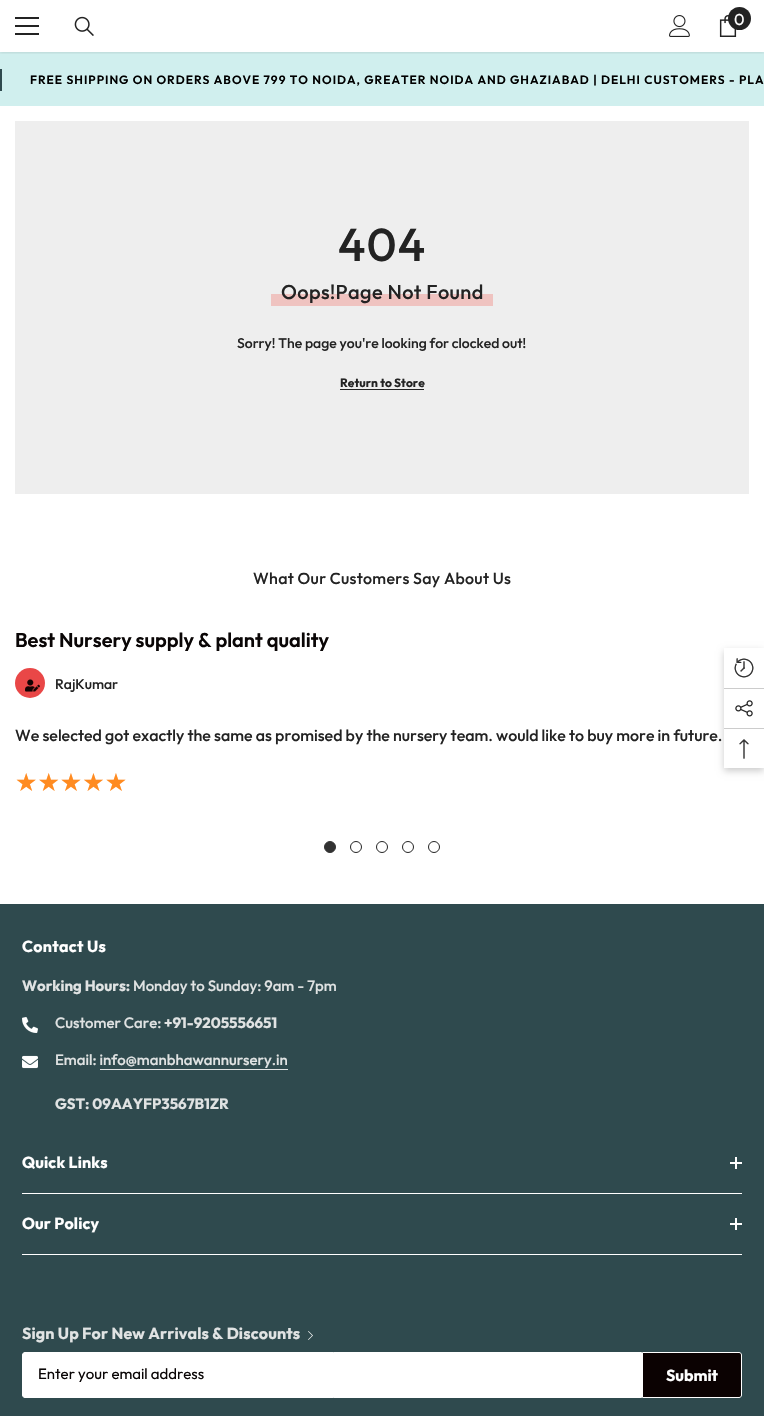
void draw(SkCanvas* c) {
SkPaint p;
p.setAntiAlias(true);
auto F=[&](const char* family, int weight, float size, bool italic = false){SkFontStyle style(weight, SkFontStyle::kNormal_Width,italic ? SkFontStyle::kItalic_Slant : SkFontStyle::kUpright_Slant);SkFont result(fontMgr->matchFamilyStyle(family, style), size);result.setSubpixel(true);return result;};
auto T=[&](const char* s, float x, float y, const SkFont& font){c->drawString(s, x, y, font, p);};
auto L=[&](const char* s, float x, float y, const SkFont& font, const SkPaint& ink, float letter, float word){std::vector<SkGlyphID> glyphs(font.countText(s, strlen(s), SkTextEncoding::kUTF8));std::vector<float> xs(glyphs.size());font.textToGlyphs(s, strlen(s), SkTextEncoding::kUTF8, glyphs);font.getXPos(glyphs, xs, x);float extra = 0;for (size_t i = 0; i < glyphs.size(); i++) {xs[i] += extra;extra += letter + word * (glyphs[i] == font.unicharToGlyph(' '));}c->drawTextBlob(SkTextBlob::MakeFromPosHGlyphs(glyphs, xs, y, font), 0, 0, ink);};
auto R=[&](float x, float y, float w, float h){c->drawRect(SkRect::MakeXYWH(x, y, w, h), p);};
auto I=[&](const char* path, float x, float y, float w, float h){auto image = SkImages::DeferredFromEncodedData(SkData::MakeFromFileName(path));c->drawImageRect(image, SkRect::MakeXYWH(x, y, w, h), SkSamplingOptions());};
auto P=[&](const char* data, bool evenOdd = false){SkPath result = *SkParsePath::FromSVGString(data);if (evenOdd) result.setFillType(SkPathFillType::kEvenOdd);return result;};
c->clear(0xffffffff);
p.setColor(0xffd0efee);
R(0,52,764,54);
c->save();
c->clipRect(SkRect::MakeXYWH(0,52,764,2));
p.setColor(0x1a000000);
p.setMaskFilter(SkMaskFilter::MakeBlur(kNormal_SkBlurStyle, 1.5));
c->drawRect(SkRect::MakeXYWH(0,1,764,52),p);
p.setMaskFilter(nullptr);
c->restore();
p.setColor(0xff232323);
R(15,25,24,2);
R(15,17,24,2);
R(15,33,24,2);
I("1.png",74,16,20,20);
I("2.png",669,15,21,22);
I("3.png",719,15,18,22);
c->drawCircle(739.5,18.5,11.5,p);
auto f1 = F("Outfit",400,16);
p.setColor(0xffffffff);
T("0",734,25,f1);
p.setColor(0xff2f4a4e);
R(0,69,2,22);
auto f2 = F("Outfit",600,12);
p.setColor(0xff000000);
L("FREE SHIPPING ON ORDERS ABOVE 799 TO NOIDA, GREATER NOIDA AND GHAZIABAD | DELHI CUSTOMERS - PLA",30,84,f2,p,1,0);
p.setColor(0xffeeeeee);
R(15,121,734,373);
auto f3 = F("Outfit",500,46);
p.setColor(0xff232323);
L("404",338,261,f3,p,1,0);
p.setColor(0xffefc3c0);
R(271,294,222,12);
auto f4 = F("Outfit",500,20);
p.setColor(0xff232323);
L("Oops!Page Not Found",281,299,f4,p,.4,0);
auto f5 = F("Outfit",500,14);
T("Sorry! The page you're looking for clocked out!",237,348,f5);
auto f6 = F("Outfit",700,12);
T("Return to Store",340,387,f6);
R(340,389,84,1);
auto f7 = F("Outfit",500,16);
L("What Our Customers Say About Us",253,584,f7,p,.3,0);
auto f8 = F("Outfit",600,20);
p.setColor(0xff0a0606);
T("Best Nursery supply & plant quality",15,647,f8);
p.setColor(0xffe94747);
c->drawCircle(30,683,15,p);
I("4.png",25,679,15,13);
p.setColor(0xff232323);
T("RajKumar",55,689,f5);
T("We selected got exactly the same as promised by the nursery team. would like to buy more in future.",15,741,f7);
auto f9 = F("DejaVu Sans",400,25);
p.setColor(0xffff8b21);
T("★★★★★",15,791,f9);
p.setColor(0xff323232);
c->drawCircle(330,847,5.5,p);
p.setStroke(true);
p.setStrokeWidth(1);
c->drawCircle(330,847,5.5,p);
p.setColor(0xff232323);
c->drawCircle(356,847,5.5,p);
c->drawCircle(382,847,5.5,p);
c->drawCircle(408,847,5.5,p);
c->drawCircle(434,847,5.5,p);
p.setStroke(false);
p.setColor(0xff2f4a4e);
R(0,904,764,512);
auto f10 = F("Outfit",700,16);
p.setColor(0xffffffff);
L("Contact Us",22,952,f10,p,.3,0);
auto f11 = F("Outfit",700,15);
p.setColor(0xffe0e3e3);
T("Working Hours:",22,991,f11);
auto f12 = F("Outfit",500,15);
T("Monday to Sunday: 9am - 7pm",133,991,f12);
I("5.png",22,1017,16,16);
T("Customer Care:",55,1028,f12);
T("+91-9205556651",164,1028,f11);
I("6.png",22,1055,16,14);
T("Email: info@manbhawannursery.in",55,1065,f12);
R(100,1069,188,1);
T("GST: 09AAYFP3567B1ZR",55,1109,f11);
p.setColor(0xffffffff);
R(22,1193,720,1);
L("Quick Links",22,1168,f10,p,.15,0);
R(735,1157,2,12);
R(730,1162,12,2);
R(22,1254,720,1);
L("Our Policy",22,1229,f10,p,.15,0);
R(735,1218,2,12);
R(730,1223,12,2);
p.setColor(0xffe0e3e3);
L("Sign Up For New Arrivals & Discounts",22,1339,f10,p,.15,0);
I("7.png",308,1331,5,9);
p.setColor(0xffffffff);
c->drawPath(P("M25 1352.5h616.5v45h-616.5c-1.5 0-2.5-1-2.5-2.5v-40c0-1.5 1-2.5 2.5-2.5z"),p);
p.setStroke(true);
c->drawPath(P("M25 1352.5h616.5v45h-616.5c-1.5 0-2.5-1-2.5-2.5v-40c0-1.5 1-2.5 2.5-2.5z"),p);
auto f13 = F("Outfit",400,15);
p.setStroke(false);
p.setColor(0xff0a0606);
T("Enter your email address",38,1379,f13);
p.setColor(0xff0b0202);
c->drawPath(P("M642.5 1352.5h96.5c1.5 0 2.5 1 2.5 2.5v40c0 1.5-1 2.5-2.5 2.5h-96.5z"),p);
p.setStroke(true);
p.setColor(0xffffffff);
c->drawPath(P("M642.5 1352.5h96.5c1.5 0 2.5 1 2.5 2.5v40c0 1.5-1 2.5-2.5 2.5h-96.5z"),p);
p.setStroke(false);
T("Submit",666,1381,f10);
c->save();
c->clipPath(P("M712 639h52v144h-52zm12 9h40v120h-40z",true),true);
p.setColor(0x33000000);
p.setMaskFilter(SkMaskFilter::MakeBlur(kNormal_SkBlurStyle, 3.5));
c->drawRect(SkRect::MakeXYWH(724,651,40,120),p);
p.setMaskFilter(nullptr);
c->restore();
I("8.png",734,658,20,20);
p.setColor(0xffcccccc);
R(724,688,40,1);
I("9.png",735,700,18,17);
R(724,728,40,1);
I("10.png",739,739,10,20);
}
